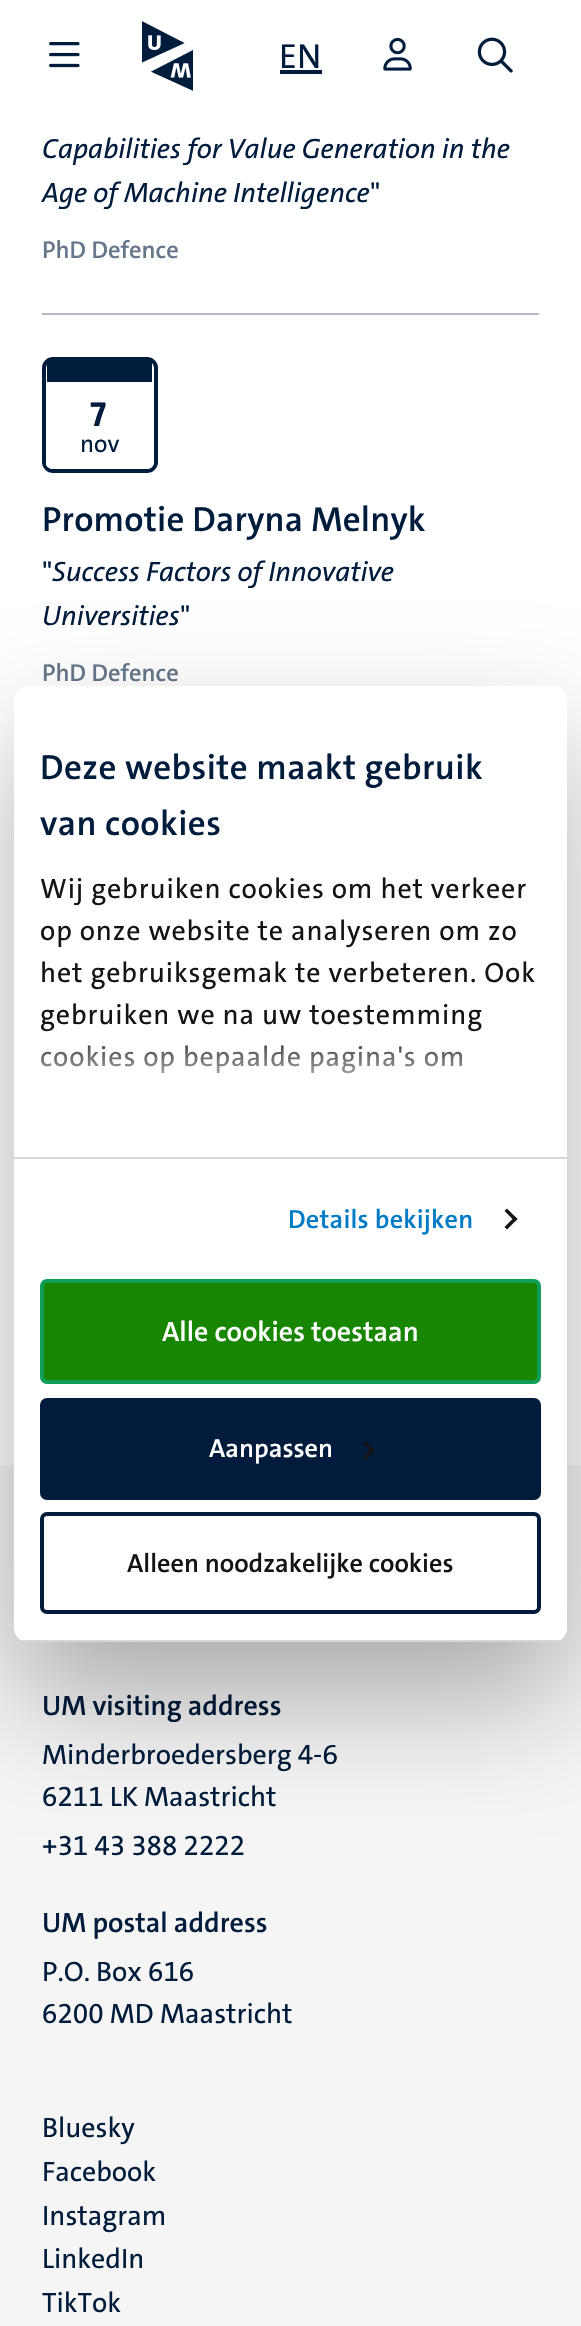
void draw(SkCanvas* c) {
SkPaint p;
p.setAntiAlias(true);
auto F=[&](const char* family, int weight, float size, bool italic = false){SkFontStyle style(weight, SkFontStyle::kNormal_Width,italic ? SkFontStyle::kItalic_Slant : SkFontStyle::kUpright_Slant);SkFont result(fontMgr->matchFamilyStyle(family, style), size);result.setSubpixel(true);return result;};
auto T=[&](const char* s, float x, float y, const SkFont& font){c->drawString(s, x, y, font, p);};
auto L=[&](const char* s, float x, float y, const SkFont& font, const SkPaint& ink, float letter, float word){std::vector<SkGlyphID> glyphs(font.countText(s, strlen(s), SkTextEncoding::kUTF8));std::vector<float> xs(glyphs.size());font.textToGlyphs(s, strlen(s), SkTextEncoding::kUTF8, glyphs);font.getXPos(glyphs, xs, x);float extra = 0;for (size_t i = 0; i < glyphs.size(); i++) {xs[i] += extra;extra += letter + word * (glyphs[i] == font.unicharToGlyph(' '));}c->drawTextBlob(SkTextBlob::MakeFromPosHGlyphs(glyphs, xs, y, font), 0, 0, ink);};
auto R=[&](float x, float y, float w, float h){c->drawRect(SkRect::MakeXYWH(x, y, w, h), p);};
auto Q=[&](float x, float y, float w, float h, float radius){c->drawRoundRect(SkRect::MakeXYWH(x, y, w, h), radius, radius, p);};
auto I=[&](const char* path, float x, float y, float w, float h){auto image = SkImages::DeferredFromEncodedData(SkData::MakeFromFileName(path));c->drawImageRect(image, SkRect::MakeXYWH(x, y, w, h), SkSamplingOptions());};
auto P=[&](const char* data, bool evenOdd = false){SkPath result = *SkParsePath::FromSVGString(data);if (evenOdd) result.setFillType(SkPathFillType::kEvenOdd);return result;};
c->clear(0xffffffff);
I("1.png",49,42,31,26);
I("2.png",142,21,51,70);
auto f1 = F("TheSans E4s",500,35);
p.setColor(0xff001c3d);
T("EN",279,68,f1);
R(280,70,42,4);
I("3.png",383,37,29,34);
I("4.png",477,37,36,36);
auto f2 = F("TheSans E4s",500,28,true);
T("Capabilities for Value Generation in the",42,158,f2);
T("Age of Machine Intelligence",42,202,f2);
auto f3 = F("TheSans E4s",500,28);
T("\"",370,202,f3);
auto f4 = F("TheSans E4s",600,24.5);
p.setColor(0xff66778b);
T("PhD Defence",42,258,f4);
p.setColor(0xffb2bbc5);
R(42,313,497,2);
p.setStroke(true);
p.setStrokeWidth(4);
p.setColor(0xff001c3d);
c->drawRoundRect(SkRect::MakeXYWH(44,359,112,112),9,9,p);
p.setStroke(false);
R(47,361,105,21);
p.setColor(0xffffffff);
c->drawPath(P("M46 382v83c1 2 4 4 6 4h95c4 0 7-3 7-7v-80z"),p);
auto f5 = F("TheSans E4s",700,35);
p.setColor(0xff001c3d);
T("7",90,426,f5);
auto f6 = F("TheSans E4s",500,24.5);
T("nov",80,452,f6);
auto f7 = F("TheSans E4s",600,35);
L("Promotie Daryna Melnyk",42,531,f7,p,.2,0);
T("\"",42,581,f3);
T("Success Factors of Innovative",52,581,f2);
T("Universities",42,625,f2);
T("\"",180,625,f3);
p.setColor(0xff66778b);
T("PhD Defence",42,681,f4);
p.setColor(0xfff5f5f5);
R(0,1465,581,861);
auto f8 = F("TheSans E4s",600,28);
p.setColor(0xff001c3d);
T("UM visiting address",42,1715,f8);
T("Minderbroedersberg 4-6",42,1764,f3);
auto f9 = F("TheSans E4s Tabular",500,28);
T("6211 LK",42,1806,f9);
T("Maastricht",144,1806,f3);
T("+31 43 388 2222",42,1855,f9);
T("UM postal address",42,1932,f8);
T("P.O. Box 616",42,1981,f9);
T("6200 MD",42,2023,f9);
T("Maastricht",160,2023,f3);
T("Bluesky",42,2137,f3);
T("Facebook",42,2181,f3);
T("Instagram",42,2225,f3);
T("LinkedIn",42,2268,f3);
T("TikTok",42,2312,f3);
p.setColor(0x4d000000);
p.setMaskFilter(SkMaskFilter::MakeBlur(kNormal_SkBlurStyle, 59.5));
c->drawRoundRect(SkRect::MakeXYWH(14,742,553,956),14,14,p);
p.setMaskFilter(nullptr);
p.setColor(0xffffffff);
Q(14,686,553,956,14);
p.setColor(0xffd6d6d6);
R(14,1157,553,2);
p.setColor(0xff001c3d);
L("Deze website maakt gebruik",40,779,f7,p,.45,0);
L("van cookies",40,835,f7,p,.45,0);
p.setColor(0xff141414);
L("Wij gebruiken cookies om het verkeer",40,898,f3,p,.9,0);
L("op onze website te analyseren om zo",40,940,f3,p,.9,0);
L("het gebruiksgemak te verbeteren. Ook",40,982,f3,p,.9,0);
L("gebruiken we na uw toestemming",40,1024,f3,p,.9,0);
L("cookies op bepaalde pagina's om",40,1066,f3,p,.9,0);
{
const SkColor colors[] = {0xffffffff,0xccffffff,0x00ffffff};
const float stops[] = {0,.5,1};
const SkPoint ends[] = {{279,1157}, {279,1026}};
p.setShader(SkGradientShader::MakeLinear(ends, colors, stops, 3, SkTileMode::kClamp));
p.setAlpha(255);
}
R(41,1028,439,46);
auto f10 = F("TheSans E4s",600,26.25);
p.setShader(nullptr);
p.setColor(0xff007bc7);
L("Details bekijken",288,1228,f10,p,.2,0);
p.setColor(0xff141414);
c->drawPath(P("M507 1208.5l10.5 10.5l-2.5 2.5l-10.5-10.5z"),p);
c->drawPath(P("M515 1216.5l2.5 2.5l-10.5 10.5l-2.5-2.5z"),p);
c->save();
c->clipPath(P("M28 686h525c7.5 0 14 6.5 14 14v928c0 7.5-6.5 14-14 14h-525c-7.5 0-14-6.5-14-14v-928c0-7.5 6.5-14 14-14z"),true);
p.setColor(0xffd6d6d6);
R(14,1640,553,2);
c->restore();
p.setColor(0xff188600);
c->drawRoundRect(SkRect::MakeXYWH(42,1281,497,101),5,5,p);
p.setStroke(true);
p.setColor(0xff0f9d58);
c->drawRoundRect(SkRect::MakeXYWH(42,1281,497,101),5,5,p);
p.setStroke(false);
p.setColor(0xffffffff);
T("Alle cookies toestaan",162,1341,f8);
p.setColor(0xff011b3c);
c->drawRoundRect(SkRect::MakeXYWH(42,1400,497,98),5,5,p);
p.setStroke(true);
c->drawRoundRect(SkRect::MakeXYWH(42,1400,497,98),5,5,p);
p.setStroke(false);
p.setColor(0xffffffff);
T("Aanpassen",209,1457,f10);
p.setColor(0xff141414);
c->drawPath(P("M365.5 1441l9.5 9.5l-2.5 2.5l-9.5-9.5z"),p);
c->drawPath(P("M372.5 1448l2.5 2.5l-9.5 9l-2.5-2.5z"),p);
p.setStroke(true);
p.setColor(0xff011b3c);
c->drawRoundRect(SkRect::MakeXYWH(42,1514,497,98),5,5,p);
p.setStroke(false);
p.setColor(0xff141414);
T("Alleen noodzakelijke cookies",127,1572,f10);
}
